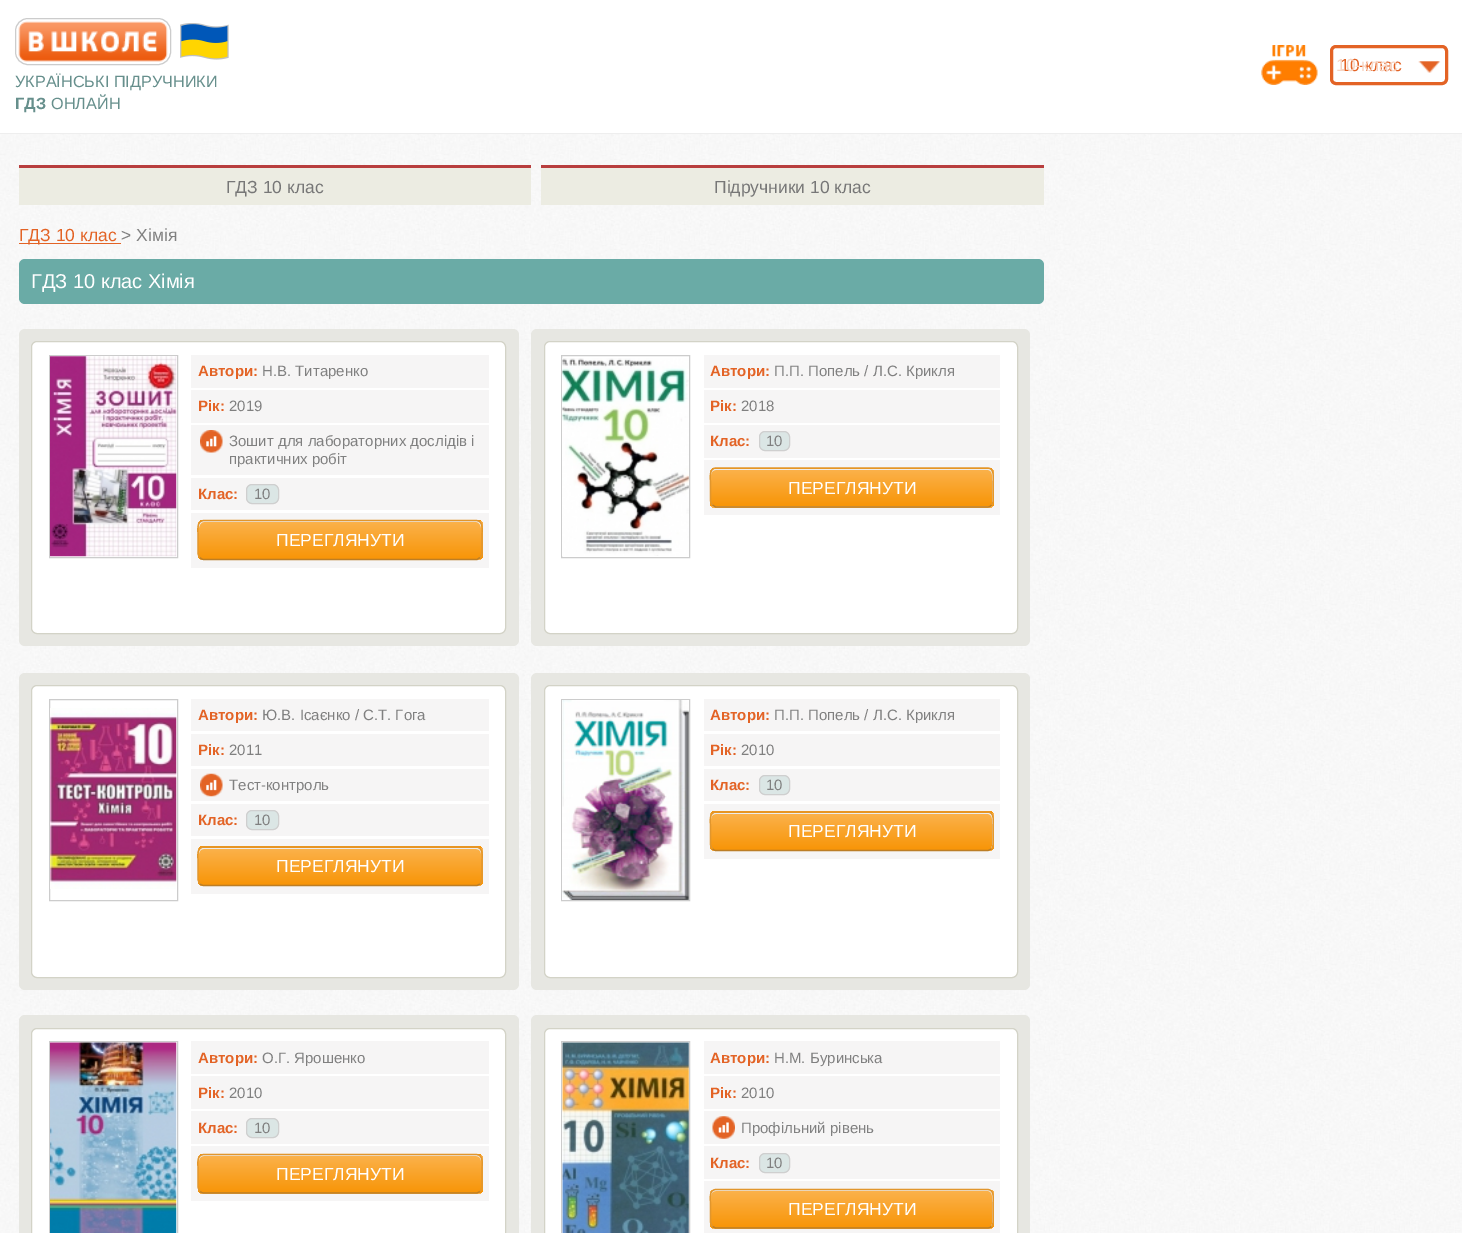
%!PS
<< /PageSize [1462 1233] >> setpagedevice
/mt/moveto load def
/li/lineto load def
/ct/curveto load def
/cp/closepath load def
/fl/fill load def
/st/stroke load def
/gs/gsave load def
/gr/grestore load def
/lw/setlinewidth load def
/co { dup -16 bitshift 255 div exch dup -8 bitshift 255 and 255 div exch 255 and 255 div setrgbcolor } def
/fn { [ exch dup neg 0 0 3 -1 roll 0 0 ] selectfont } def
/tx { co fn moveto show } def
/bx { co rectfill } def
/rr { 5 dict begin { /r /h /w /y /x } { exch def } forall
  x r add y moveto x w add y 2 copy h add r arct x w add y h add x 1 index r arct
  x y h add x y r arct x y 2 copy exch w add exch r arct closepath end } def
/im { 5 dict begin { /h /w /y /x /name } { exch def } forall
  gsave x y translate w h scale
  w h 8 [w 0 0 h 0 0] name (r) file false 3 colorimage grestore end } def
0 1233 translate 1 -1 scale
4 setmiterlimit
0 0 1462 1233 16#FFFFFF bx
(media/1.raw) 0 134 1462 1099 im
0 133 1462 1 16#EEEEEE bx
(media/2.raw) 1261 45 57 40 im
(media/3.raw) 1418 61 23 12 im
16#E36325 co
3 lw
1331.5 46.5 115 37 4.5 rr st
(media/4.raw) 18 21 150 44 im
16#CCCCCC co
1 lw
15.5 18.5 155 46 12.5 rr st
(media/5.raw) 180 23 49 37 im
19 168 512 37 16#ECECE2 bx
19 165 512 3 16#B83E3E bx
541 168 503 37 16#ECECE2 bx
541 165 503 3 16#B83E3E bx
19 243 102 1 16#E36325 bx
16#6AABA6 co
19 259 1025 45 6 rr fl
16#E7E7E2 co
19 329 500 317 6 rr fl
16#FFFFFF co
31.5 341.5 474 292 5.5 rr gs fl gr
16#D3D3C7 co
st
16#CCCCCC co
49.5 355.5 128 202 rectstroke
(media/6.raw) 50 356 127 201 im
191 355 298 33 16#F6F5F5 bx
191 390 298 33 16#F6F5F5 bx
191 425 298 50 16#F6F5F5 bx
(media/7.raw) 200 430 23 23 im
191 478 298 32 16#F6F5F5 bx
16#DBE6E5 co
246.5 484.5 32 19 5.5 rr gs fl gr
16#CFCFCF co
st
191 513 298 55 16#F6F5F5 bx
gs
198 520 285 40 6 rr clip newpath
gs 198 520 mt 483 520 li 483 521 li 198 521 li cp clip newpath
<< /ShadingType 2 /ColorSpace /DeviceRGB /Coords [340 484 340 521] /Extend [true true] /Function << /FunctionType 2 /Domain [0 1] /C0 [.984 .698 .298] /C1 [.973 .584 .027] /N 1 >> >> shfill gr
gs 198 521 mt 483 521 li 483 559 li 198 559 li cp clip newpath
<< /ShadingType 2 /ColorSpace /DeviceRGB /Coords [340 521 340 559] /Extend [true true] /Function << /FunctionType 2 /Domain [0 1] /C0 [.984 .698 .298] /C1 [.973 .584 .027] /N 1 >> >> shfill gr
gs 198 559 mt 483 559 li 483 560 li 198 560 li cp clip newpath
<< /ShadingType 2 /ColorSpace /DeviceRGB /Coords [340 559 340 596] /Extend [true true] /Function << /FunctionType 2 /Domain [0 1] /C0 [.984 .698 .298] /C1 [.973 .584 .027] /N 1 >> >> shfill gr
gr
16#ECECEC co
204 522 mt 476 522 li 479 522 481 525 481 528 ct 481 526 li 481 523 479 521 476 521 ct 204 521 li 201 521 199 523 199 526 ct 199 528 li 199 525 201 522 204 522 ct cp fl
16#BC7E26 co
1.2 lw
480 557.5 mt 477 559.5 li 204 559.5 li 202.5 559.5 201 559 200 557.5 ct st
16#E1962D co
200 557.5 mt 197.5 555.5 198 552 198 549 ct 198 535.5 li 198 531 196 520.5 204 520.5 ct 476 520.5 li 484 520.5 482 531 482 535.5 ct 482 549 li 482 552 482.5 555.5 480 557.5 ct st
16#E7E7E2 co
531 329 499 317 6 rr fl
16#FFFFFF co
544.5 341.5 473 292 5.5 rr gs fl gr
16#D3D3C7 co
1 lw
st
16#CCCCCC co
561.5 355.5 128 202 rectstroke
(media/8.raw) 562 358 127 198 im
704 355 296 33 16#F6F5F5 bx
704 390 296 33 16#F6F5F5 bx
704 425 296 33 16#F6F5F5 bx
16#DBE6E5 co
759.5 431.5 30 19 5.5 rr gs fl gr
16#CFCFCF co
st
704 460 296 55 16#F6F5F5 bx
gs
710 468 284 40 6 rr clip newpath
gs 710 468 mt 994 468 li 994 469 li 710 469 li cp clip newpath
<< /ShadingType 2 /ColorSpace /DeviceRGB /Coords [852 431 852 469] /Extend [true true] /Function << /FunctionType 2 /Domain [0 1] /C0 [.984 .698 .298] /C1 [.973 .584 .027] /N 1 >> >> shfill gr
gs 710 469 mt 994 469 li 994 506 li 710 506 li cp clip newpath
<< /ShadingType 2 /ColorSpace /DeviceRGB /Coords [852 469 852 506] /Extend [true true] /Function << /FunctionType 2 /Domain [0 1] /C0 [.984 .698 .298] /C1 [.973 .584 .027] /N 1 >> >> shfill gr
gs 710 506 mt 994 506 li 994 508 li 710 508 li cp clip newpath
<< /ShadingType 2 /ColorSpace /DeviceRGB /Coords [852 506 852 544] /Extend [true true] /Function << /FunctionType 2 /Domain [0 1] /C0 [.984 .698 .298] /C1 [.973 .584 .027] /N 1 >> >> shfill gr
gr
16#ECECEC co
716 470 mt 988 470 li 990 470 992 472 992 475 ct 992 502 li 992 505 li 992 504 993 502 993 501 ct 993 474 li 993 471 991 469 988 469 ct 716 469 li 713 469 711 471 711 474 ct 711 475 li 711 472 713 470 716 470 ct cp fl
16#BC7E26 co
1.2 lw
991.5 505 mt 990.5 506.5 989 507 987.5 507 ct 715.5 507 li 712.5 505 li st
16#E1962D co
712.5 505 mt 710 503 710.5 499.5 710.5 496.5 ct 710.5 483 li 710.5 478.5 708.5 468 716 468 ct 987.5 468 li 995 468 993 478.5 993 483 ct 993 496.5 li 993 499.5 993.5 503 991.5 505 ct st
16#E7E7E2 co
19 673 500 317 6 rr fl
16#FFFFFF co
31.5 685.5 474 292 5.5 rr gs fl gr
16#D3D3C7 co
1 lw
st
16#CCCCCC co
49.5 699.5 128 201 rectstroke
(media/9.raw) 50 708 127 181 im
191 699 298 32 16#F6F5F5 bx
191 734 298 32 16#F6F5F5 bx
191 769 298 32 16#F6F5F5 bx
(media/10.raw) 200 773 23 24 im
191 804 298 32 16#F6F5F5 bx
16#DBE6E5 co
246.5 810.5 32 19 5.5 rr gs fl gr
16#CFCFCF co
st
191 839 298 55 16#F6F5F5 bx
gs
198 846 285 40 6 rr clip newpath
gs 198 846 mt 483 846 li 483 848 li 198 848 li cp clip newpath
<< /ShadingType 2 /ColorSpace /DeviceRGB /Coords [340 810 340 848] /Extend [true true] /Function << /FunctionType 2 /Domain [0 1] /C0 [.984 .698 .298] /C1 [.973 .584 .027] /N 1 >> >> shfill gr
gs 198 848 mt 483 848 li 483 885 li 198 885 li cp clip newpath
<< /ShadingType 2 /ColorSpace /DeviceRGB /Coords [340 848 340 885] /Extend [true true] /Function << /FunctionType 2 /Domain [0 1] /C0 [.984 .698 .298] /C1 [.973 .584 .027] /N 1 >> >> shfill gr
gs 198 885 mt 483 885 li 483 886 li 198 886 li cp clip newpath
<< /ShadingType 2 /ColorSpace /DeviceRGB /Coords [340 885 340 923] /Extend [true true] /Function << /FunctionType 2 /Domain [0 1] /C0 [.984 .698 .298] /C1 [.973 .584 .027] /N 1 >> >> shfill gr
gr
16#ECECEC co
204 849 mt 476 849 li 479 849 481 851 481 854 ct 481 853 li 481 850 479 848 476 848 ct 204 848 li 201 848 199 850 199 853 ct 199 854 li 199 851 201 849 204 849 ct cp fl
16#BC7E26 co
1.2 lw
480 884 mt 477 885.5 li 204 885.5 li 202.5 885.5 201 885 200 884 ct st
16#E1962D co
200 884 mt 197.5 881.5 198 878.5 198 875.5 ct 198 861.5 li 198 857 196 847 204 847 ct 476 847 li 484 847 482 857 482 861.5 ct 482 875.5 li 482 878.5 482.5 881.5 480 884 ct st
16#E7E7E2 co
531 673 499 317 6 rr fl
16#FFFFFF co
544.5 685.5 473 292 5.5 rr gs fl gr
16#D3D3C7 co
1 lw
st
16#CCCCCC co
561.5 699.5 128 201 rectstroke
(media/11.raw) 562 700 127 200 im
704 699 296 32 16#F6F5F5 bx
704 734 296 32 16#F6F5F5 bx
704 769 296 32 16#F6F5F5 bx
16#DBE6E5 co
759.5 775.5 30 19 5.5 rr gs fl gr
16#CFCFCF co
st
704 804 296 55 16#F6F5F5 bx
gs
710 811 284 40 6 rr clip newpath
gs 710 811 mt 994 811 li 994 813 li 710 813 li cp clip newpath
<< /ShadingType 2 /ColorSpace /DeviceRGB /Coords [852 775 852 813] /Extend [true true] /Function << /FunctionType 2 /Domain [0 1] /C0 [.984 .698 .298] /C1 [.973 .584 .027] /N 1 >> >> shfill gr
gs 710 813 mt 994 813 li 994 850 li 710 850 li cp clip newpath
<< /ShadingType 2 /ColorSpace /DeviceRGB /Coords [852 813 852 850] /Extend [true true] /Function << /FunctionType 2 /Domain [0 1] /C0 [.984 .698 .298] /C1 [.973 .584 .027] /N 1 >> >> shfill gr
gs 710 850 mt 994 850 li 994 851 li 710 851 li cp clip newpath
<< /ShadingType 2 /ColorSpace /DeviceRGB /Coords [852 850 852 888] /Extend [true true] /Function << /FunctionType 2 /Domain [0 1] /C0 [.984 .698 .298] /C1 [.973 .584 .027] /N 1 >> >> shfill gr
gr
16#ECECEC co
716 814 mt 988 814 li 990 814 992 816 992 819 ct 992 846 li 991 849 li 992 848 993 846 993 845 ct 993 818 li 993 815 991 813 988 813 ct 716 813 li 713 813 711 815 711 818 ct 711 819 li 711 816 713 814 716 814 ct cp fl
16#BC7E26 co
1.2 lw
991.5 849 mt 988 850.5 li 716 850.5 li 715 850.5 713.5 850 712.5 849 ct st
16#E1962D co
712.5 849 mt 710 846.5 710.5 843.5 710.5 840.5 ct 710.5 826.5 li 710.5 822 708.5 812 716 812 ct 987.5 812 li 995 812 993 822 993 826.5 ct 993 840.5 li 993 843.5 993.5 846.5 991.5 849 ct st
16#E7E7E2 co
19 1015 500 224 6 rr fl
16#FFFFFF co
31.5 1028.5 474 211 5.5 rr gs fl gr
16#D3D3C7 co
1 lw
st
16#CCCCCC co
49.5 1041.5 128 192 rectstroke
(media/12.raw) 50 1042 127 191 im
191 1041 298 33 16#F6F5F5 bx
191 1076 298 33 16#F6F5F5 bx
191 1111 298 33 16#F6F5F5 bx
16#DBE6E5 co
246.5 1118.5 32 19 5.5 rr gs fl gr
16#CFCFCF co
st
191 1146 298 55 16#F6F5F5 bx
gs
198 1154 285 40 6 rr clip newpath
gs 198 1154 mt 483 1154 li 483 1155 li 198 1155 li cp clip newpath
<< /ShadingType 2 /ColorSpace /DeviceRGB /Coords [340 1118 340 1155] /Extend [true true] /Function << /FunctionType 2 /Domain [0 1] /C0 [.984 .698 .298] /C1 [.973 .584 .027] /N 1 >> >> shfill gr
gs 198 1155 mt 483 1155 li 483 1193 li 198 1193 li cp clip newpath
<< /ShadingType 2 /ColorSpace /DeviceRGB /Coords [340 1155 340 1193] /Extend [true true] /Function << /FunctionType 2 /Domain [0 1] /C0 [.984 .698 .298] /C1 [.973 .584 .027] /N 1 >> >> shfill gr
gs 198 1193 mt 483 1193 li 483 1194 li 198 1194 li cp clip newpath
<< /ShadingType 2 /ColorSpace /DeviceRGB /Coords [340 1193 340 1230] /Extend [true true] /Function << /FunctionType 2 /Domain [0 1] /C0 [.984 .698 .298] /C1 [.973 .584 .027] /N 1 >> >> shfill gr
gr
16#ECECEC co
204 1156 mt 476 1156 li 479 1156 481 1158 481 1161 ct 481 1160 li 481 1157 479 1155 476 1155 ct 204 1155 li 201 1155 199 1157 199 1160 ct 199 1161 li 199 1158 201 1156 204 1156 ct cp fl
16#BC7E26 co
1.2 lw
480 1191.5 mt 477 1193 li 204 1193 li 202.5 1193 201 1192.5 200 1191.5 ct st
16#E1962D co
200 1191.5 mt 197.5 1189 198 1186 198 1183 ct 198 1169 li 198 1164.5 196 1154.5 204 1154.5 ct 476 1154.5 li 484 1154.5 482 1164.5 482 1169 ct 482 1183 li 482 1186 482.5 1189 480 1191.5 ct st
16#E7E7E2 co
531 1015 499 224 6 rr fl
16#FFFFFF co
544.5 1028.5 473 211 5.5 rr gs fl gr
16#D3D3C7 co
1 lw
st
16#CCCCCC co
561.5 1041.5 128 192 rectstroke
(media/13.raw) 562 1042 127 191 im
704 1041 296 33 16#F6F5F5 bx
704 1076 296 33 16#F6F5F5 bx
704 1111 296 33 16#F6F5F5 bx
(media/14.raw) 712 1116 23 23 im
704 1146 296 33 16#F6F5F5 bx
16#DBE6E5 co
759.5 1153.5 30 19 5.5 rr gs fl gr
16#CFCFCF co
st
704 1181 296 52 16#F6F5F5 bx
gs
710 1189 284 40 6 rr clip newpath
gs 710 1190 mt 994 1190 li 994 1228 li 710 1228 li cp clip newpath
<< /ShadingType 2 /ColorSpace /DeviceRGB /Coords [852 1190 852 1228] /Extend [true true] /Function << /FunctionType 2 /Domain [0 1] /C0 [.984 .698 .298] /C1 [.973 .584 .027] /N 1 >> >> shfill gr
gs 710 1228 mt 994 1228 li 994 1229 li 710 1229 li cp clip newpath
<< /ShadingType 2 /ColorSpace /DeviceRGB /Coords [852 1228 852 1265] /Extend [true true] /Function << /FunctionType 2 /Domain [0 1] /C0 [.984 .698 .298] /C1 [.973 .584 .027] /N 1 >> >> shfill gr
gr
16#ECECEC co
716 1191 mt 988 1191 li 990 1191 992 1193 992 1196 ct 992 1224 li 991 1227 li 992 1226 993 1224 993 1223 ct 993 1195 li 993 1192 991 1190 988 1190 ct 716 1190 li 713 1190 711 1192 711 1195 ct 711 1196 li 711 1193 713 1191 716 1191 ct cp fl
16#BC7E26 co
1.2 lw
991.5 1226.5 mt 990.5 1227.5 989 1228 987.5 1228 ct 715.5 1228 li 712.5 1226.5 li st
16#E1962D co
712.5 1226.5 mt 710 1224 710.5 1221 710.5 1218 ct 710.5 1204 li 710.5 1199.5 708.5 1189.5 716 1189.5 ct 987.5 1189.5 li 995 1189.5 993 1199.5 993 1204 ct 993 1218 li 993 1221 993.5 1224 991.5 1226.5 ct st
(10-клас) 1340 71 /LiberationSans-Regular 17.5 16#E36325 tx
(10-клас) 1336 71 /LiberationSans-Regular 17.5 16#F7D5C4 tx
(УКРАЇНСЬКІ ПІДРУЧНИКИ) 15 87 /LiberationSans-Regular 16.25 16#668F8C tx
(ГДЗ) 15 109 /LiberationSans-Bold 16.25 16#668F8C tx
(ОНЛАЙН) 51 109 /LiberationSans-Regular 16.25 16#668F8C tx
(ГДЗ 10 клас) 226 193 /LiberationSans-Regular 17.5 16#777777 tx
(Підручники 10 клас) 714 193 /LiberationSans-Regular 17.5 16#777777 tx
(ГДЗ 10 клас) 19 241 /LiberationSans-Regular 17.5 16#E36325 tx
(> Хімія) 121 241 /LiberationSans-Regular 17.5 16#808080 tx
(ГДЗ 10 клас Хімія) 31 288 /LiberationSans-Regular 20 16#FFFFFF tx
(Автори:) 198 376 /LiberationSans-Bold 15 16#E36325 tx
(Н.В. Титаренко) 262 376 /LiberationSans-Regular 15 16#808080 tx
(Рік:) 198 411 /LiberationSans-Bold 15 16#E36325 tx
(2019) 229 411 /LiberationSans-Regular 15 16#808080 tx
(Зошит для лабораторних дослідів і) 229 446 /LiberationSans-Regular 15 16#808080 tx
(практичних робіт) 229 464 /LiberationSans-Regular 15 16#808080 tx
(Клас:) 198 499 /LiberationSans-Bold 15 16#E36325 tx
(10) 254 499 /LiberationSans-Regular 15 16#808080 tx
(ПЕРЕГЛЯНУТИ) 276 546 /LiberationSans-Regular 17.5 16#FFFFFF tx
(Автори:) 710 376 /LiberationSans-Bold 15 16#E36325 tx
(П.П. Попель / Л.С. Крикля) 774 376 /LiberationSans-Regular 15 16#808080 tx
(Рік:) 710 411 /LiberationSans-Bold 15 16#E36325 tx
(2018) 741 411 /LiberationSans-Regular 15 16#808080 tx
(Клас:) 710 446 /LiberationSans-Bold 15 16#E36325 tx
(10) 766 446 /LiberationSans-Regular 15 16#808080 tx
(ПЕРЕГЛЯНУТИ) 788 494 /LiberationSans-Regular 17.5 16#FFFFFF tx
(Автори:) 198 720 /LiberationSans-Bold 15 16#E36325 tx
(Ю.В. Ісаєнко / С.Т. Гога) 262 720 /LiberationSans-Regular 15 16#808080 tx
(Рік:) 198 755 /LiberationSans-Bold 15 16#E36325 tx
(2011) 229 755 /LiberationSans-Regular 15 16#808080 tx
(Тест-контроль) 229 790 /LiberationSans-Regular 15 16#808080 tx
(Клас:) 198 825 /LiberationSans-Bold 15 16#E36325 tx
(10) 254 825 /LiberationSans-Regular 15 16#808080 tx
(ПЕРЕГЛЯНУТИ) 276 872 /LiberationSans-Regular 17.5 16#FFFFFF tx
(Автори:) 710 720 /LiberationSans-Bold 15 16#E36325 tx
(П.П. Попель / Л.С. Крикля) 774 720 /LiberationSans-Regular 15 16#808080 tx
(Рік:) 710 755 /LiberationSans-Bold 15 16#E36325 tx
(2010) 741 755 /LiberationSans-Regular 15 16#808080 tx
(Клас:) 710 790 /LiberationSans-Bold 15 16#E36325 tx
(10) 766 790 /LiberationSans-Regular 15 16#808080 tx
(ПЕРЕГЛЯНУТИ) 788 837 /LiberationSans-Regular 17.5 16#FFFFFF tx
(Автори:) 198 1063 /LiberationSans-Bold 15 16#E36325 tx
(О.Г. Ярошенко) 262 1063 /LiberationSans-Regular 15 16#808080 tx
(Рік:) 198 1098 /LiberationSans-Bold 15 16#E36325 tx
(2010) 229 1098 /LiberationSans-Regular 15 16#808080 tx
(Клас:) 198 1133 /LiberationSans-Bold 15 16#E36325 tx
(10) 254 1133 /LiberationSans-Regular 15 16#808080 tx
(ПЕРЕГЛЯНУТИ) 276 1180 /LiberationSans-Regular 17.5 16#FFFFFF tx
(Автори:) 710 1063 /LiberationSans-Bold 15 16#E36325 tx
(Н.М. Буринська) 774 1063 /LiberationSans-Regular 15 16#808080 tx
(Рік:) 710 1098 /LiberationSans-Bold 15 16#E36325 tx
(2010) 741 1098 /LiberationSans-Regular 15 16#808080 tx
(Профільний рівень) 741 1133 /LiberationSans-Regular 15 16#808080 tx
(Клас:) 710 1168 /LiberationSans-Bold 15 16#E36325 tx
(10) 766 1168 /LiberationSans-Regular 15 16#808080 tx
(ПЕРЕГЛЯНУТИ) 788 1215 /LiberationSans-Regular 17.5 16#FFFFFF tx
showpage
